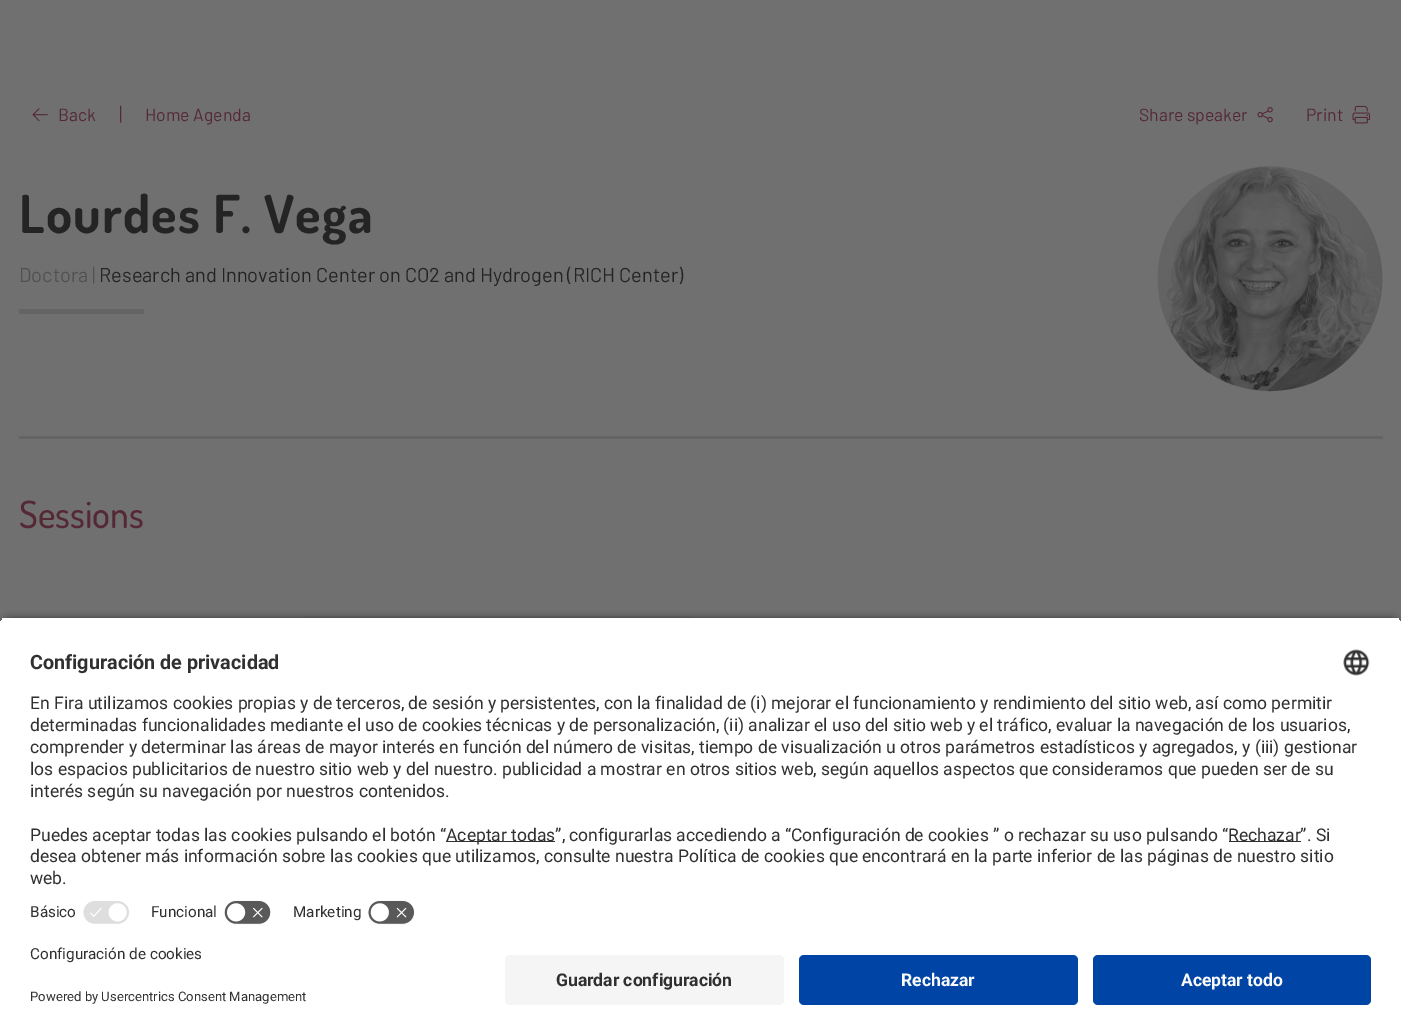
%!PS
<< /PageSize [1401 1035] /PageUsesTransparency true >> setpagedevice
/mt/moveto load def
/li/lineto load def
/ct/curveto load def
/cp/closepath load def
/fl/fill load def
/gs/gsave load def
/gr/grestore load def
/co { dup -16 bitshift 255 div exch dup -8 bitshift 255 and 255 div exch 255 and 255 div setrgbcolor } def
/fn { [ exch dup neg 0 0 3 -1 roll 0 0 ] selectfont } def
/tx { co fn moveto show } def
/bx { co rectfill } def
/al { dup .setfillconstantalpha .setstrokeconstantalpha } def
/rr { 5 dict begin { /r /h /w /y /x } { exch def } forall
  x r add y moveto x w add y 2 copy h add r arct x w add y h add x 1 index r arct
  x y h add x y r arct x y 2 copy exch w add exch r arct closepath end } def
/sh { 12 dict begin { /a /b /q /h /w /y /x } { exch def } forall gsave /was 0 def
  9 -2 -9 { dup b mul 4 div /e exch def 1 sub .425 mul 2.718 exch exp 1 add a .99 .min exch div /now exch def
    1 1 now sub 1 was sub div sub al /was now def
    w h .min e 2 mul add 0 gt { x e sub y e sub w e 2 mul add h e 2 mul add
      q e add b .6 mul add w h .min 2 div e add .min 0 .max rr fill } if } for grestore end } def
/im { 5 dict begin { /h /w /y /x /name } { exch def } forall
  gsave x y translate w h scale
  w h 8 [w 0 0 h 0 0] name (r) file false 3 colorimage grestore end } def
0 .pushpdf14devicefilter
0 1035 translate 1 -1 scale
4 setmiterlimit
0 0 1401 1035 16#707070 bx
(media/1.raw) 32 108 16 14 im
(media/2.raw) 1257 107 16 16 im
(media/3.raw) 1352 105 18 19 im
19 309 125 5 16#646464 bx
(media/4.raw) 1157 166 226 226 im
19 436 1364 3 16#646464 bx
16#6C6D6D co
301 616 394 25 5 rr fl
16#000000 co
0 620 1401 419 10 4.5 .8 sh
gs
10 616 mt 1391 616 li 1396.5 616 1401 620.5 1401 626 ct 1401 945 li 0 945 li 0 626 li 0 620.5 4.5 616 10 616 ct cp clip newpath
0 618 1401 327 16#FFFFFF bx
0 618 1401 277 16#FFFFFF bx
gr
(media/5.raw) 1343 649 27 27 im
446 841 109 1 16#303030 bx
1229 841 72 1 16#303030 bx
(media/6.raw) 83 901 46 23 im
(media/7.raw) 224 900 47 25 im
(media/8.raw) 367 900 48 25 im
0 945 1401 90 16#FFFFFF bx
16#F5F5F5 co
505 955 279 50 5 rr fl
16#0045A5 co
799 955 279 50 5 rr fl
1093 955 278 50 5 rr fl
(Back) 58 121 /Barlow-Regular 17.5 16#542835 tx
(|) 119 121 /Barlow-Regular 20 16#542835 tx
(Home Agenda) 145 121 /Barlow-Regular 17.5 16#542835 tx
(Share speaker) 1139 121 /Barlow-Regular 17.5 16#542835 tx
(Print) 1306 121 /Barlow-Regular 17.5 16#542835 tx
/Dosis-Bold 52.5 fn
16#242424 co
19 233 mt 1.25 0 (Lourdes F. Vega) ashow
(Doctora |) 19 282 /Barlow-Regular 20 16#515151 tx
(Research and Innovation Center on CO2 and Hydrogen \(RICH Center\)) 99 282 /Barlow-Regular 20 16#242424 tx
(Sessions) 19 528 /Dosis-Medium 37.5 16#542835 tx
(Configuración de privacidad) 30 669 /Roboto-Bold 19.75 16#303030 tx
(En Fira utilizamos cookies propias y de terceros, de sesión y persistentes, con la finalidad de \(i\) mejorar el funcionamiento y rendimiento del sitio web, así como permitir) 30 709 /Roboto-Regular 17.5 16#303030 tx
(determinadas funcionalidades mediante el uso de cookies técnicas y de personalización, \(ii\) analizar el uso del sitio web y el tráfico, evaluar la navegación de los usuarios,) 30 731 /Roboto-Regular 17.5 16#303030 tx
(comprender y determinar las áreas de mayor interés en función del número de visitas, tiempo de visualización u otros parámetros estadísticos y agregados, y \(iii\) gestionar) 30 753 /Roboto-Regular 17.5 16#303030 tx
(los espacios publicitarios de nuestro sitio web y del nuestro. publicidad a mostrar en otros sitios web, según aquellos aspectos que consideramos que pueden ser de su) 30 775 /Roboto-Regular 17.5 16#303030 tx
(interés según su navegación por nuestros contenidos.) 30 797 /Roboto-Regular 17.5 16#303030 tx
(Puedes aceptar todas las cookies pulsando el botón “) 30 841 /Roboto-Regular 17.5 16#303030 tx
(Aceptar todas”, configurarlas accediendo a “Configuración de cookies ” o rechazar su uso pulsando “) 446 841 /Roboto-Regular 17.5 16#303030 tx
(Rechazar”. Si) 1228 841 /Roboto-Regular 17.5 16#303030 tx
(desea obtener más información sobre las cookies que utilizamos, consulte nuestra Política de cookies que encontrará en la parte inferior de las páginas de nuestro sitio) 30 862 /Roboto-Regular 17.5 16#303030 tx
(web.) 30 884 /Roboto-Regular 17.5 16#303030 tx
(Básico) 30 917 /Roboto-Regular 15.25 16#303030 tx
(Funcional) 151 917 /Roboto-Regular 15.25 16#303030 tx
(Marketing) 293 917 /Roboto-Regular 15.25 16#303030 tx
(Configuración de cookies) 30 959 /Roboto-Regular 15.25 16#303030 tx
(Powered by Usercentrics Consent Management) 30 1001 /Roboto-Regular 13.1 16#303030 tx
(Guardar configuración) 556 986 /Roboto-Bold 17.5 16#303030 tx
(Rechazar) 901 986 /Roboto-Bold 17.5 16#FAFAFA tx
(Aceptar todo) 1181 986 /Roboto-Bold 17.5 16#FAFAFA tx
.poppdf14devicefilter showpage
